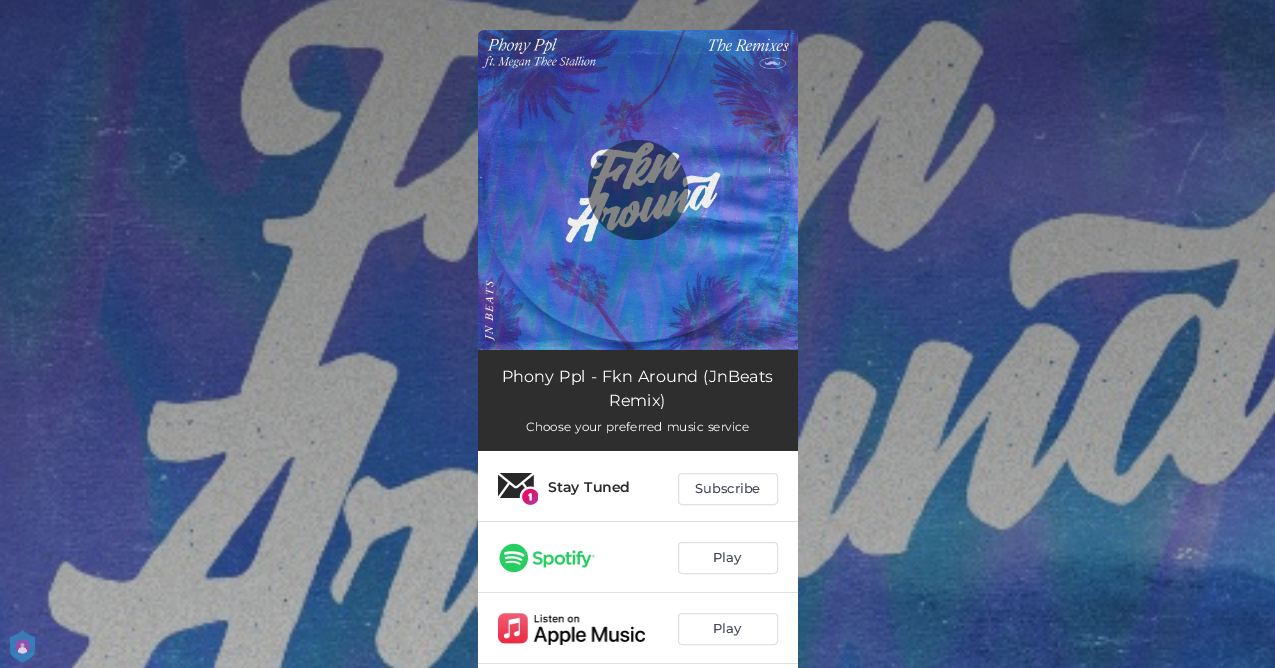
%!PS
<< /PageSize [1275 668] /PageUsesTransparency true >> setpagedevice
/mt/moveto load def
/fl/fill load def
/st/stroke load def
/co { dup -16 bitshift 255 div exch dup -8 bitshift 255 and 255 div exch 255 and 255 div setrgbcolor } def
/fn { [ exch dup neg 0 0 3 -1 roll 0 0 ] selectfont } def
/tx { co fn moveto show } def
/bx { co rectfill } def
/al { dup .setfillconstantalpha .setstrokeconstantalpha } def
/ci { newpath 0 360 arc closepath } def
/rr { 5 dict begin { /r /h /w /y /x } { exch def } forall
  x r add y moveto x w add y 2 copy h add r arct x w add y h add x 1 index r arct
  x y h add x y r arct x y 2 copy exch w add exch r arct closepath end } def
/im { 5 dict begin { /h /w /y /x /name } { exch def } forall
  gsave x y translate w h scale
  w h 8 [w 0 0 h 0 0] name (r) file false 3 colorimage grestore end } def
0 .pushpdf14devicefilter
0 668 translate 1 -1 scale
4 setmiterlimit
0 0 1275 668 16#FFFFFF bx
(media/1.raw) 0 0 1275 668 im
(media/2.raw) 478 30 320 320 im
0.45 al
16#000000 co
638 190 50 ci fl
1 al
478 350 320 101 16#2E2E2E bx
478 451 320 217 16#FFFFFF bx
478 521 320 1 16#E1E1E4 bx
(media/3.raw) 498 473 40 32 im
678.5 473.5 99 31 3.5 rr st
478 592 320 1 16#E1E1E4 bx
(media/4.raw) 499 543 96 30 im
678.5 542.5 99 31 3.5 rr st
478 663 320 1 16#E1E1E4 bx
(media/5.raw) 498 613 147 32 im
678.5 613.5 99 31 3.5 rr st
(media/6.raw) 10 630 25 33 im
/Montserrat-Regular 16 fn
16#FFFFFF co
502 382 mt 1 0 32 (Phony Ppl - Fkn Around \(JnBeats) widthshow
(Remix\)) 609 406 /Montserrat-Regular 16 16#FFFFFF tx
/Montserrat-Regular 12 fn
526 431 mt 1 0 32 (Choose your preferred music service) widthshow
/Montserrat-SemiBold 14 fn
16#282828 co
548 492 mt 1 0 32 (Stay Tuned) widthshow
(Subscribe) 695 493 /Montserrat-Medium 13 16#414754 tx
(Play) 713 562 /Montserrat-Medium 13 16#414754 tx
(Play) 713 633 /Montserrat-Medium 13 16#414754 tx
.poppdf14devicefilter showpage
